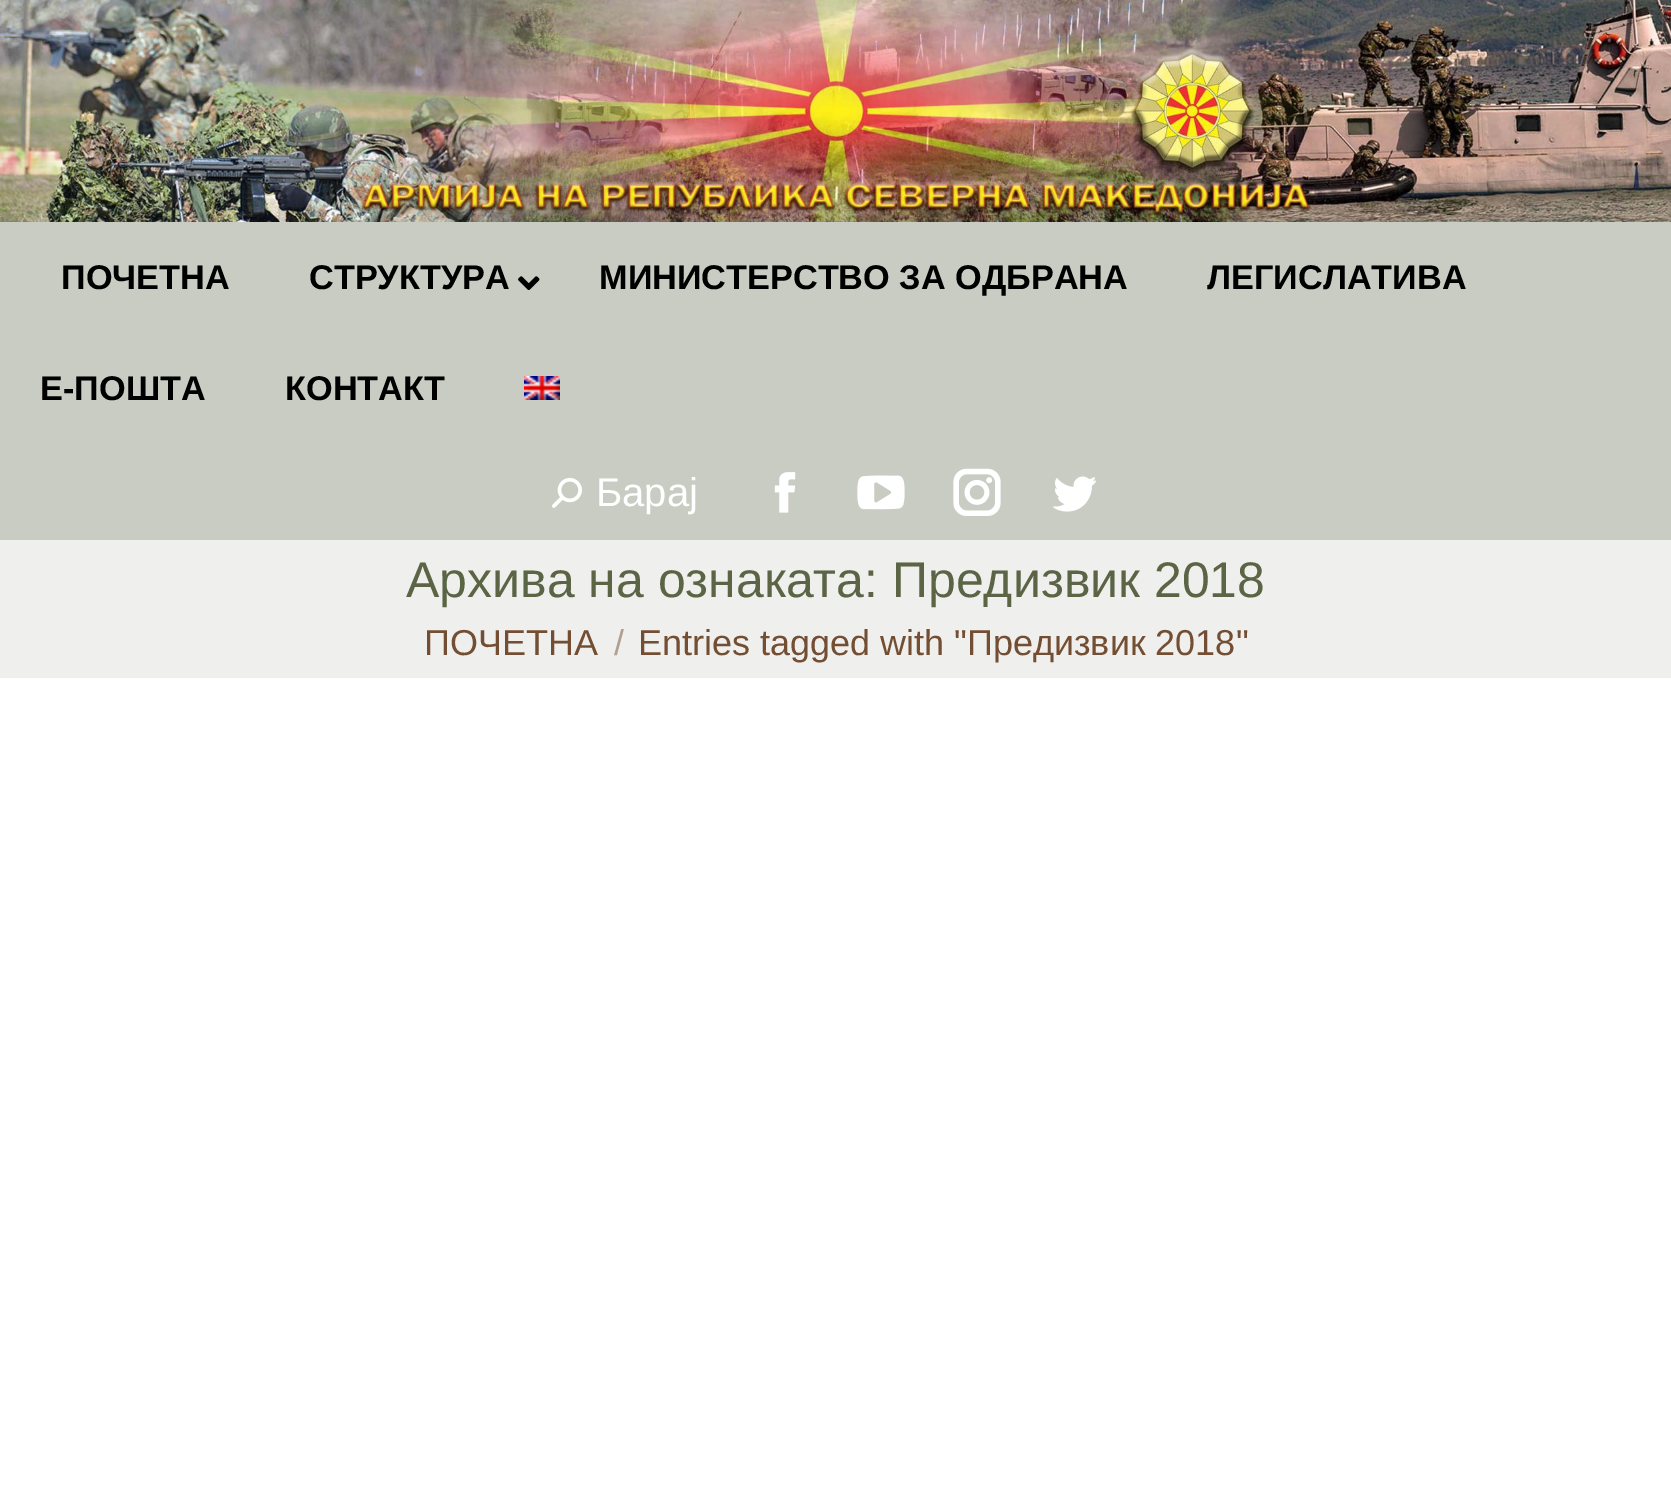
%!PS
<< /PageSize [1671 1490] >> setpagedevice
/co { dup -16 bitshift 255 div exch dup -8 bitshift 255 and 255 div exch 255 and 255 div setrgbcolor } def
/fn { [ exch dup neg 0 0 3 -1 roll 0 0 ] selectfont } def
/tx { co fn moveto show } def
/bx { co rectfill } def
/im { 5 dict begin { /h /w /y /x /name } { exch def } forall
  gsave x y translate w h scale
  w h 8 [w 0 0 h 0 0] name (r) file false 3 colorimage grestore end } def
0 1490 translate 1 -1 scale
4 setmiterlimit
0 0 1671 1490 16#FFFFFF bx
(media/1.raw) 0 0 1671 222 im
0 222 1671 318 16#C9CCC2 bx
(media/2.raw) 518 276 22 14 im
(media/3.raw) 524 376 36 24 im
(media/4.raw) 552 477 30 31 im
(media/5.raw) 774 472 22 41 im
(media/6.raw) 857 475 48 35 im
(media/7.raw) 953 468 48 48 im
(media/8.raw) 1053 476 43 36 im
0 540 1671 138 16#EFF0ED bx
(ПОЧЕТНА) 61 289 /LiberationSans-Bold 34.25 16#000000 tx
(СТРУКТУРА) 309 289 /LiberationSans-Bold 34.25 16#000000 tx
(МИНИСТЕРСТВО ЗА ОДБРАНА) 599 289 /LiberationSans-Bold 34.25 16#000000 tx
(ЛЕГИСЛАТИВА) 1207 289 /LiberationSans-Bold 34.25 16#000000 tx
(Е-ПОШТА) 40 400 /LiberationSans-Bold 34.25 16#000000 tx
(КОНТАКТ) 285 400 /LiberationSans-Bold 34.25 16#000000 tx
(Барај) 596 506 /LiberationSans-Regular 40 16#FFFFFF tx
(Архива на ознаката: Предизвик 2018) 406 597 /LiberationSans-Regular 50 16#5B6445 tx
(ПОЧЕТНА) 424 655 /LiberationSans-Regular 36 16#734E33 tx
(/) 614 655 /LiberationSans-Regular 36 16#B19F90 tx
(Entries tagged with "Предизвик 2018") 638 655 /LiberationSans-Regular 36 16#734E33 tx
showpage
